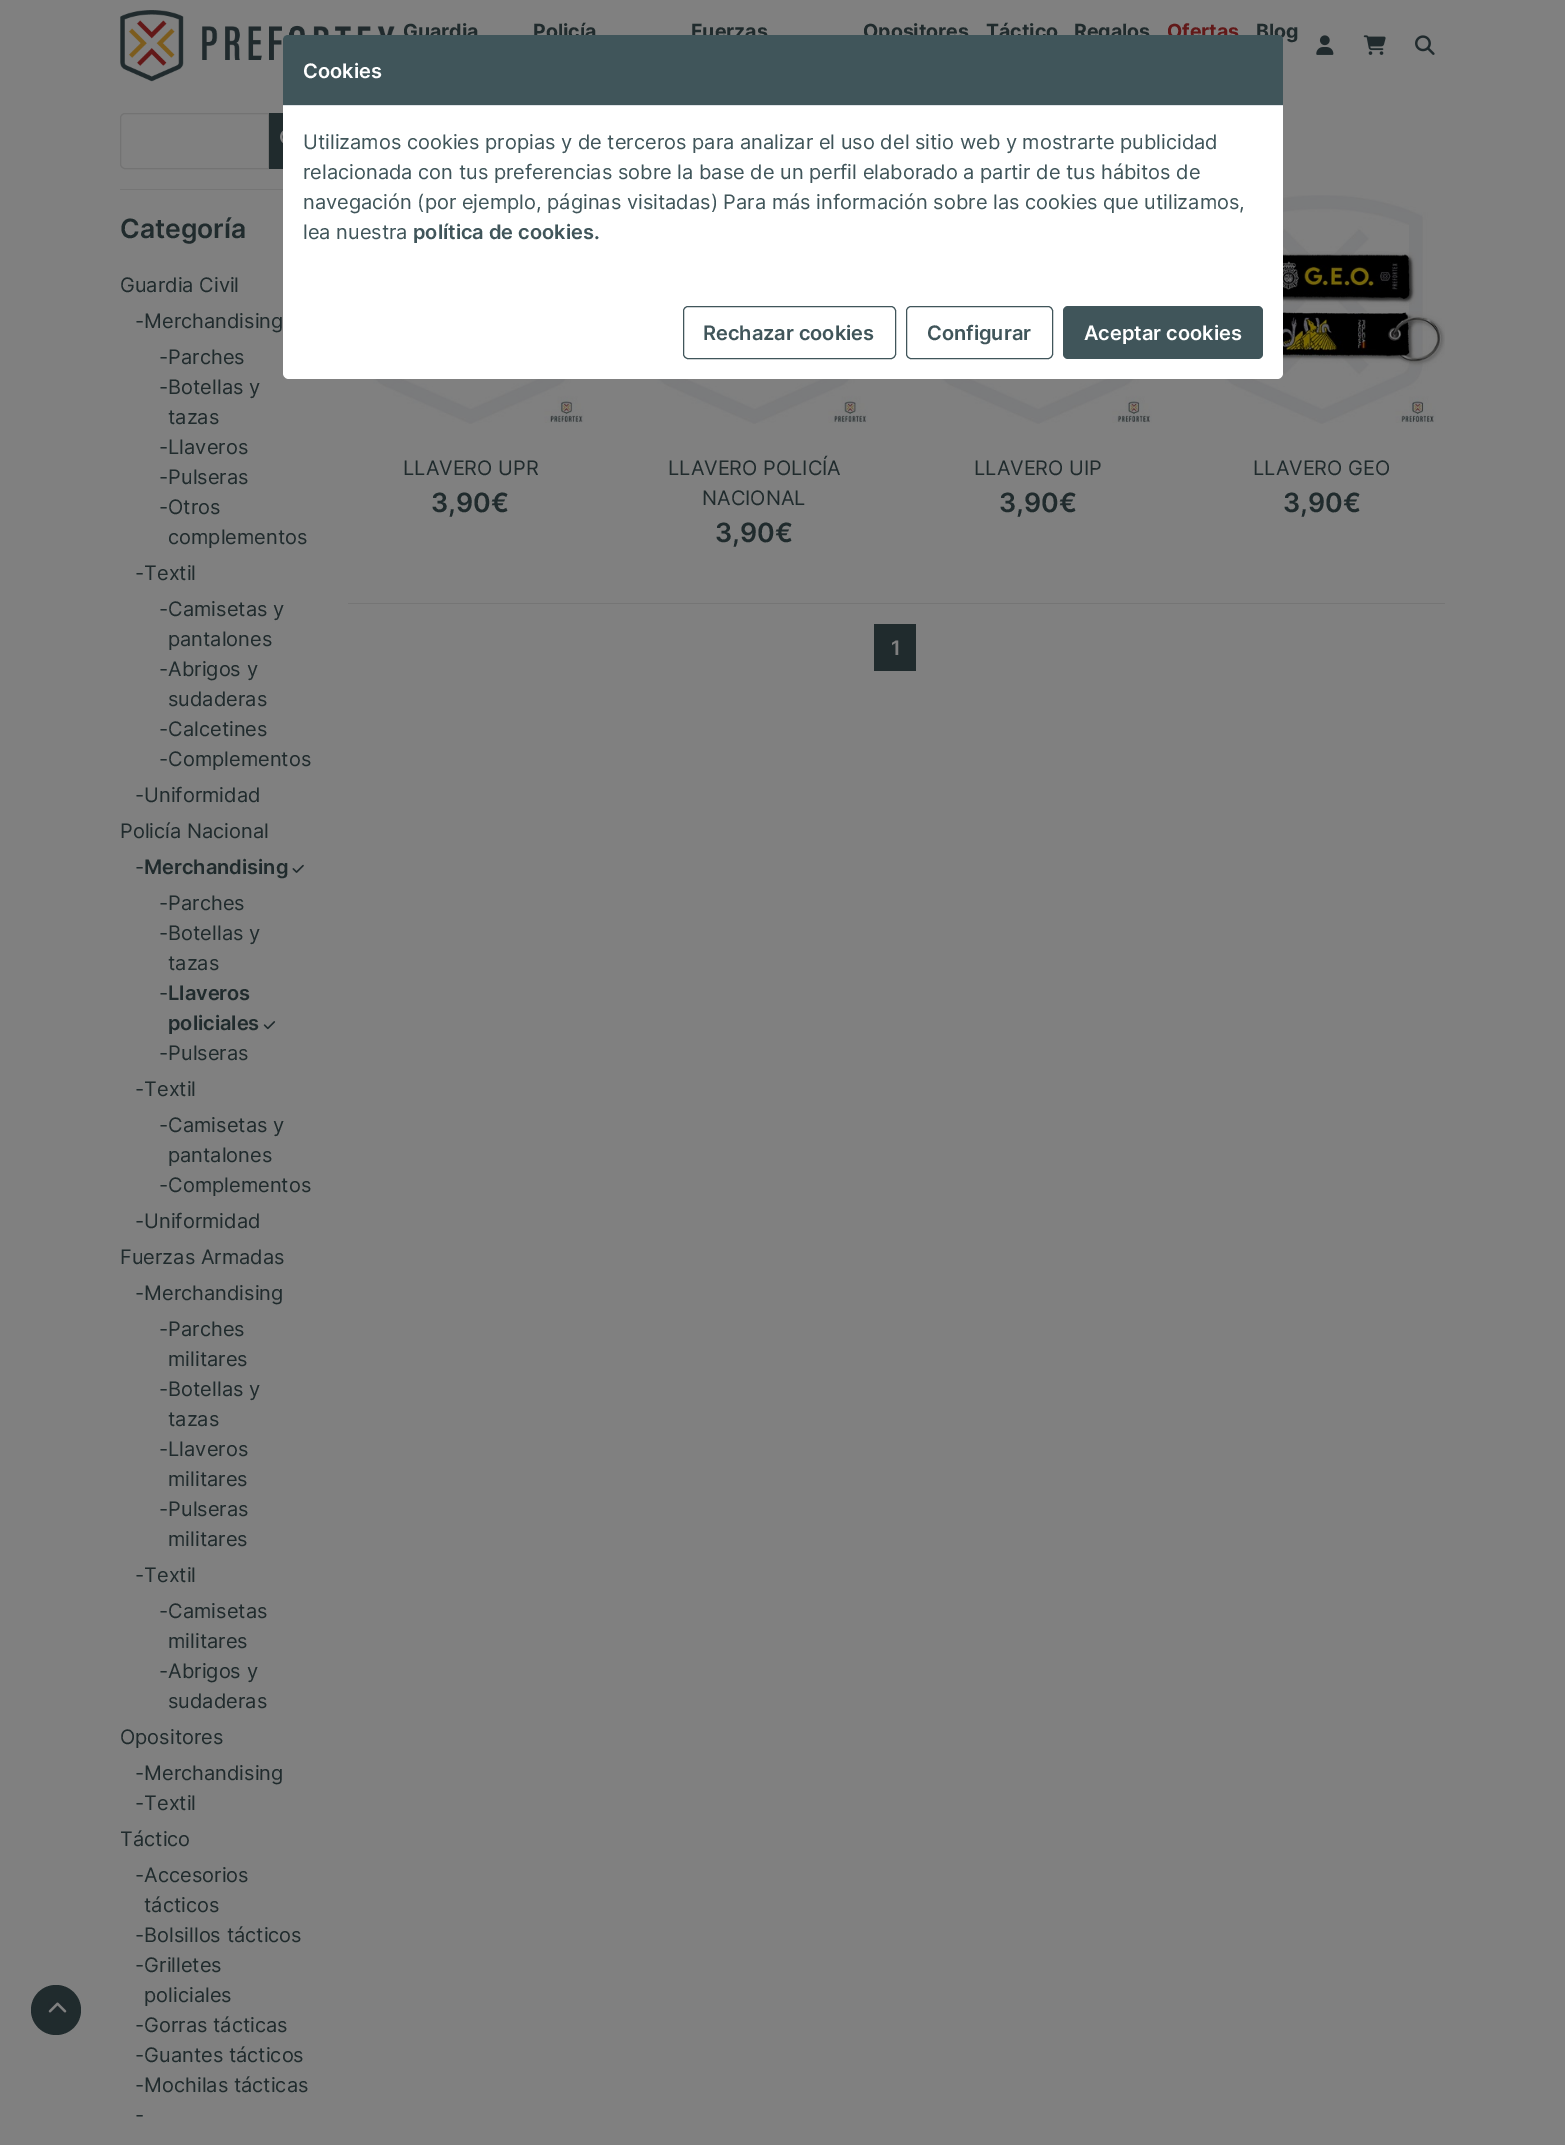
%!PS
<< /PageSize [1565 2145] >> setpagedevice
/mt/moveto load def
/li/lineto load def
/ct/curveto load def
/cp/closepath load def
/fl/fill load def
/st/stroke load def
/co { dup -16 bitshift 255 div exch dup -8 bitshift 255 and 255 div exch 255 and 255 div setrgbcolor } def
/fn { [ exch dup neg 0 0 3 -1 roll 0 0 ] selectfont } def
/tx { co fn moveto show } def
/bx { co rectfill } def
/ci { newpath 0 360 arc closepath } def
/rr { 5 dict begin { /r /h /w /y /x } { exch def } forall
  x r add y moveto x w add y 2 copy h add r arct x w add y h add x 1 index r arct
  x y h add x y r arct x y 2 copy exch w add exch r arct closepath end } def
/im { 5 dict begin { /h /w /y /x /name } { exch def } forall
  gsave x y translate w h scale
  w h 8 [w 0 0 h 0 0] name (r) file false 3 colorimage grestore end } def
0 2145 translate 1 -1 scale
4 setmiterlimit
0 0 1565 2145 16#808080 bx
(media/1.raw) 120 10 275 72 im
(media/2.raw) 1316 35 18 20 im
(media/3.raw) 1363 35 23 20 im
(media/4.raw) 1415 35 20 20 im
16#202B2D co
56 2010 25 ci fl
(media/5.raw) 48 2002 19 11 im
16#737373 co
125 113.5 mt 268.5 113.5 li 268.5 168.5 li 125 168.5 li 122.5 168.5 120.5 166.5 120.5 164 ct 120.5 118 li 120.5 115.5 122.5 113.5 125 113.5 ct cp st
269 113 14 56 16#202B2D bx
(media/6.raw) 280 130 3 13 im
120 189 163 1 16#757575 bx
(media/7.raw) 292 864 12 9 im
(media/8.raw) 263 1021 13 9 im
(media/9.raw) 352 379 242 45 im
(media/10.raw) 636 379 242 45 im
(media/11.raw) 920 379 241 45 im
(media/12.raw) 1202 195 243 229 im
348 603 1097 1 16#757575 bx
874 624 42 47 16#202B2D bx
(Guardia) 403 38 /Inter-Bold 19.5 16#202B2D tx
(Policía) 533 38 /Inter-Bold 19.5 16#202B2D tx
(Fuerzas) 691 38 /Inter-Bold 19.5 16#202B2D tx
(Opositores) 863 38 /Inter-Bold 19.5 16#202B2D tx
(Táctico) 986 38 /Inter-Bold 19.5 16#202B2D tx
(Regalos) 1074 38 /Inter-Bold 19.5 16#202B2D tx
(Ofertas) 1167 38 /Inter-Bold 19.5 16#621919 tx
(Blog) 1256 38 /Inter-Bold 19.5 16#202B2D tx
16#FFFFFF co
283 35 1000 344 6 rr fl
16#40555A co
288 35 mt 1278 35 li 1281 35 1283 37 1283 40 ct 1283 106 li 283 106 li 283 40 li 283 37 285 35 288 35 ct cp fl
283 105 1000 1 16#DEE2E6 bx
(Cookies) 303 78 /Inter-SemiBold 20 16#FFFFFF tx
(Utilizamos cookies propias y de terceros para analizar el uso del sitio web y mostrarte publicidad) 303 149 /Inter-Regular 20 16#40555A tx
(relacionada con tus preferencias sobre la base de un perfil elaborado a partir de tus hábitos de) 303 179 /Inter-Regular 20 16#40555A tx
(navegación \(por ejemplo, páginas visitadas\) Para más información sobre las cookies que utilizamos,) 303 209 /Inter-Regular 20 16#40555A tx
(lea nuestra) 303 239 /Inter-Regular 20 16#40555A tx
(política de cookies.) 413 239 /Inter-SemiBold 20 16#40555A tx
683.5 306.5 212 52 4.5 rr st
(Rechazar cookies) 703 340 /Inter-SemiBold 20 16#40555A tx
906.5 306.5 146 52 4.5 rr st
(Configurar) 927 340 /Inter-SemiBold 20 16#40555A tx
1063 306 200 53 5 rr fl
(Aceptar cookies) 1084 340 /Inter-SemiBold 20 16#FFFFFF tx
(Categoría) 120 238 /Inter-SemiBold 26.5 16#202B2D tx
(Guardia Civil) 120 292 /Inter-Regular 20 16#202B2D tx
(-Merchandising) 135 328 /Inter-Regular 20 16#202B2D tx
(-Parches) 159 364 /Inter-Regular 20 16#202B2D tx
(-Botellas y) 159 394 /Inter-Regular 20 16#202B2D tx
(tazas) 168 424 /Inter-Regular 20 16#202B2D tx
(-Llaveros) 159 454 /Inter-Regular 20 16#202B2D tx
(-Pulseras) 159 484 /Inter-Regular 20 16#202B2D tx
(-Otros) 159 514 /Inter-Regular 20 16#202B2D tx
(complementos) 168 544 /Inter-Regular 20 16#202B2D tx
(-Textil) 135 580 /Inter-Regular 20 16#202B2D tx
(-Camisetas y) 159 616 /Inter-Regular 20 16#202B2D tx
(pantalones) 168 646 /Inter-Regular 20 16#202B2D tx
(-Abrigos y) 159 676 /Inter-Regular 20 16#202B2D tx
(sudaderas) 168 706 /Inter-Regular 20 16#202B2D tx
(-Calcetines) 159 736 /Inter-Regular 20 16#202B2D tx
(-Complementos) 159 766 /Inter-Regular 20 16#202B2D tx
(-Uniformidad) 135 802 /Inter-Regular 20 16#202B2D tx
(Policía Nacional) 120 838 /Inter-Regular 20 16#202B2D tx
(-) 135 874 /Inter-Regular 20 16#202B2D tx
(Merchandising) 144 874 /Inter-SemiBold 20 16#202B2D tx
(-Parches) 159 910 /Inter-Regular 20 16#202B2D tx
(-Botellas y) 159 940 /Inter-Regular 20 16#202B2D tx
(tazas) 168 970 /Inter-Regular 20 16#202B2D tx
(-) 159 1000 /Inter-Regular 20 16#202B2D tx
(Llaveros) 168 1000 /Inter-SemiBold 20 16#202B2D tx
(policiales) 168 1030 /Inter-SemiBold 20 16#202B2D tx
(-Pulseras) 159 1060 /Inter-Regular 20 16#202B2D tx
(-Textil) 135 1096 /Inter-Regular 20 16#202B2D tx
(-Camisetas y) 159 1132 /Inter-Regular 20 16#202B2D tx
(pantalones) 168 1162 /Inter-Regular 20 16#202B2D tx
(-Complementos) 159 1192 /Inter-Regular 20 16#202B2D tx
(-Uniformidad) 135 1228 /Inter-Regular 20 16#202B2D tx
(Fuerzas Armadas) 120 1264 /Inter-Regular 20 16#202B2D tx
(-Merchandising) 135 1300 /Inter-Regular 20 16#202B2D tx
(-Parches) 159 1336 /Inter-Regular 20 16#202B2D tx
(militares) 168 1366 /Inter-Regular 20 16#202B2D tx
(-Botellas y) 159 1396 /Inter-Regular 20 16#202B2D tx
(tazas) 168 1426 /Inter-Regular 20 16#202B2D tx
(-Llaveros) 159 1456 /Inter-Regular 20 16#202B2D tx
(militares) 168 1486 /Inter-Regular 20 16#202B2D tx
(-Pulseras) 159 1516 /Inter-Regular 20 16#202B2D tx
(militares) 168 1546 /Inter-Regular 20 16#202B2D tx
(-Textil) 135 1582 /Inter-Regular 20 16#202B2D tx
(-Camisetas) 159 1618 /Inter-Regular 20 16#202B2D tx
(militares) 168 1648 /Inter-Regular 20 16#202B2D tx
(-Abrigos y) 159 1678 /Inter-Regular 20 16#202B2D tx
(sudaderas) 168 1708 /Inter-Regular 20 16#202B2D tx
(Opositores) 120 1744 /Inter-Regular 20 16#202B2D tx
(-Merchandising) 135 1780 /Inter-Regular 20 16#202B2D tx
(-Textil) 135 1810 /Inter-Regular 20 16#202B2D tx
(Táctico) 120 1846 /Inter-Regular 20 16#202B2D tx
(-Accesorios) 135 1882 /Inter-Regular 20 16#202B2D tx
(tácticos) 144 1912 /Inter-Regular 20 16#202B2D tx
(-Bolsillos tácticos) 135 1942 /Inter-Regular 20 16#202B2D tx
(-Grilletes) 135 1972 /Inter-Regular 20 16#202B2D tx
(policiales) 144 2002 /Inter-Regular 20 16#202B2D tx
(-Gorras tácticas) 135 2032 /Inter-Regular 20 16#202B2D tx
(-Guantes tácticos) 135 2062 /Inter-Regular 20 16#202B2D tx
(-Mochilas tácticas) 135 2092 /Inter-Regular 20 16#202B2D tx
(-) 135 2122 /Inter-Regular 20 16#202B2D tx
(LLAVERO UPR) 403 475 /Inter-Regular 20 16#202B2D tx
(3,90€) 431 512 /Inter-SemiBold 26.5 16#202B2D tx
(LLAVERO POLICÍA) 668 475 /Inter-Regular 20 16#202B2D tx
(NACIONAL) 702 505 /Inter-Regular 20 16#202B2D tx
(3,90€) 715 542 /Inter-SemiBold 26.5 16#202B2D tx
(LLAVERO UIP) 974 475 /Inter-Regular 20 16#202B2D tx
(3,90€) 999 512 /Inter-SemiBold 26.5 16#202B2D tx
(LLAVERO GEO) 1253 475 /Inter-Regular 20 16#202B2D tx
(3,90€) 1283 512 /Inter-SemiBold 26.5 16#202B2D tx
(1) 891 655 /Inter-SemiBold 20 16#808080 tx
showpage
